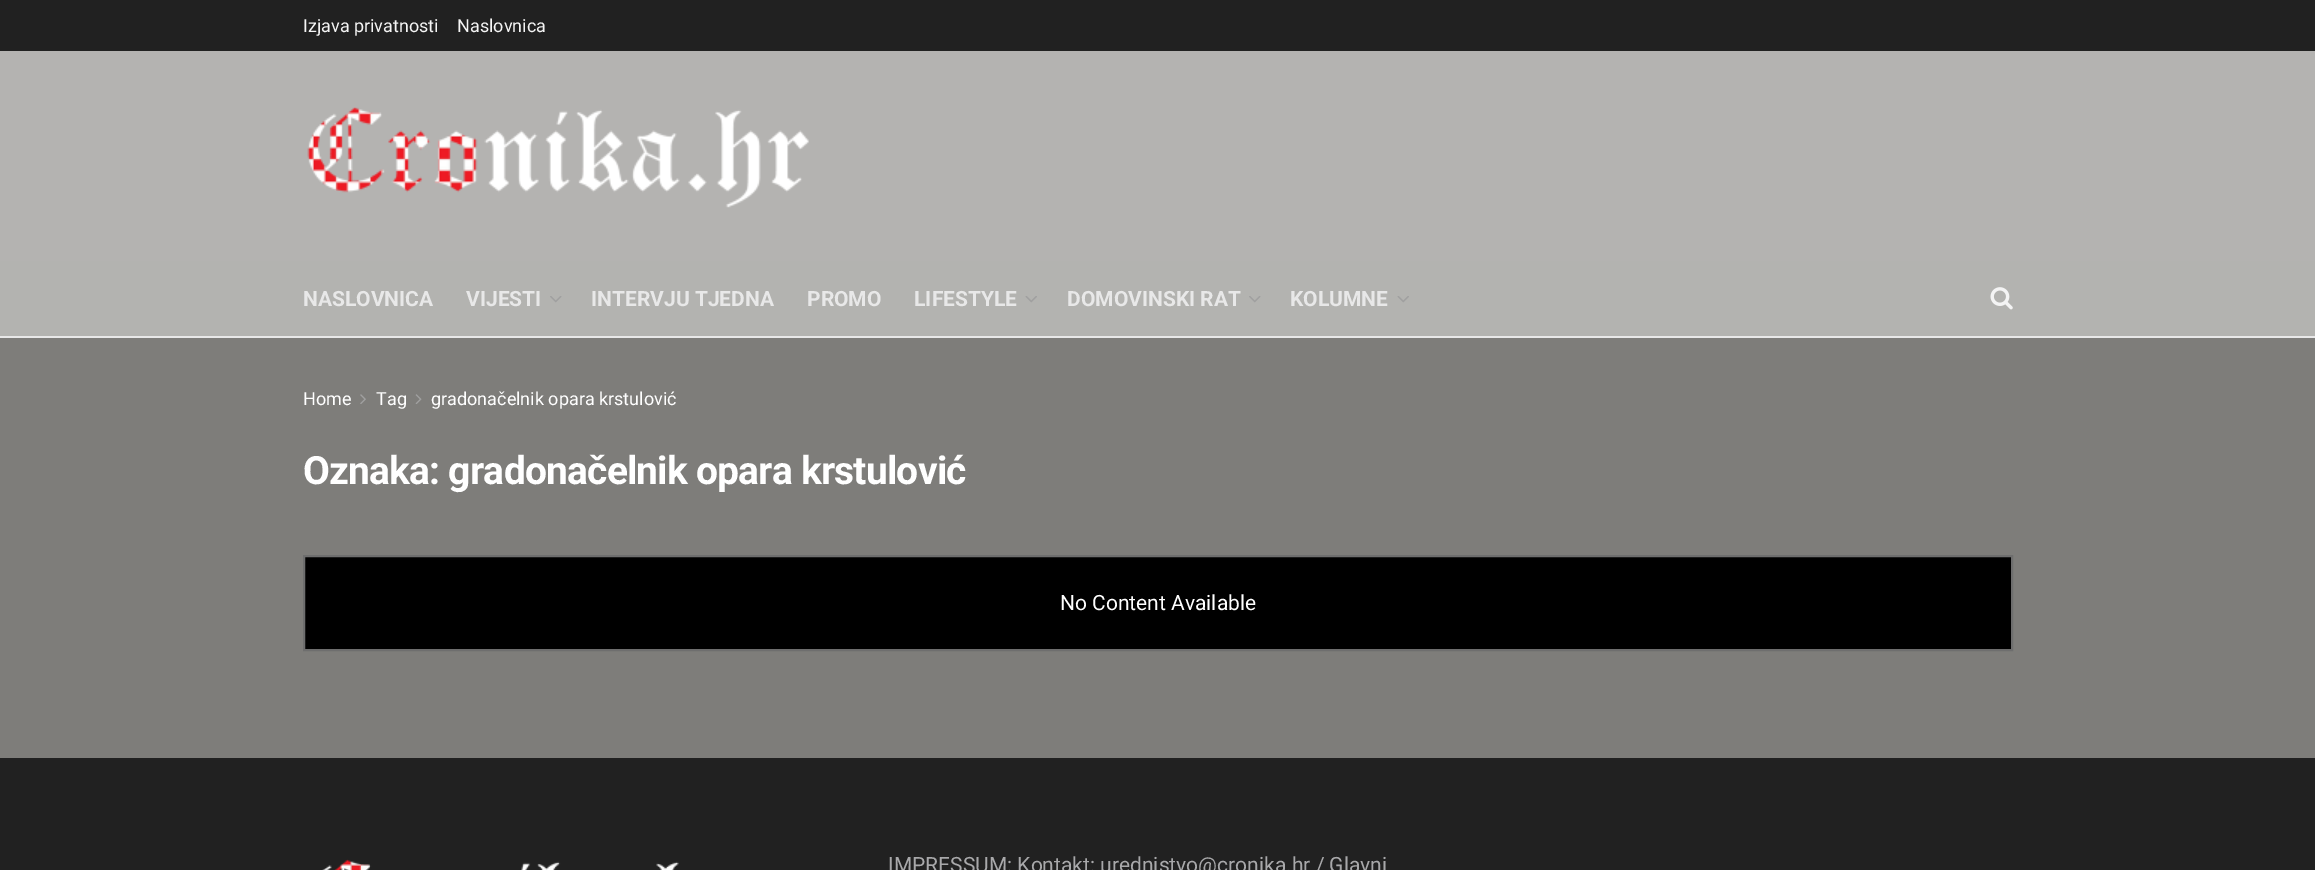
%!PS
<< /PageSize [2315 870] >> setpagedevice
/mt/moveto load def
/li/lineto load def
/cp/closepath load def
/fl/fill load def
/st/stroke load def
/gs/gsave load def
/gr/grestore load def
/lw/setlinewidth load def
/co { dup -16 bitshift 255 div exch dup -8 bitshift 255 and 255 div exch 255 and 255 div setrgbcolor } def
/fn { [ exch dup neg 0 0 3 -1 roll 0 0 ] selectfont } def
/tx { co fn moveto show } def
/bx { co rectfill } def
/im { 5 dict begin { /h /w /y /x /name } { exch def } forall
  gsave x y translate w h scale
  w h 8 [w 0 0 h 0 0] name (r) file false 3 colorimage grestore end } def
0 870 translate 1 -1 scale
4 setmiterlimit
0 0 2315 870 16#7E7D7A bx
0 0 2315 51 16#212121 bx
0 51 2315 210 16#B4B3B1 bx
(media/1.raw) 307 107 502 101 im
0 261 2315 75 16#B3B3B0 bx
0 336 2315 2 16#E8E8E8 bx
(media/2.raw) 550 296 12 7 im
(media/3.raw) 1025 296 12 7 im
(media/2.raw) 1249 296 12 7 im
(media/3.raw) 1397 296 12 7 im
(media/4.raw) 1990 287 23 23 im
(media/5.raw) 360 394 6 10 im
(media/6.raw) 415 394 7 10 im
16#000000 co
304 556 mt 2012 556 li 2012 650 li 304 650 li cp gs fl gr
16#6E6E6E co
2 lw
st
0 758 2315 112 16#212121 bx
(media/7.raw) 322 859 357 11 im
(Izjava privatnosti) 303 32 /Roboto-Regular 18 16#F5F5F5 tx
(Naslovnica) 457 32 /Roboto-Regular 18 16#F5F5F5 tx
(NASLOVNICA) 303 306 /Roboto-Bold 21 16#E8E8E8 tx
(VIJESTI) 466 306 /Roboto-Bold 21 16#E8E8E8 tx
(INTERVJU TJEDNA) 591 306 /Roboto-Bold 21 16#E8E8E8 tx
(PROMO) 807 306 /Roboto-Bold 21 16#E8E8E8 tx
(LIFESTYLE) 914 306 /Roboto-Bold 21 16#E8E8E8 tx
(DOMOVINSKI RAT) 1067 306 /Roboto-Bold 21 16#E8E8E8 tx
(KOLUMNE) 1290 306 /Roboto-Bold 21 16#E8E8E8 tx
(Home) 303 405 /Roboto-Regular 18 16#FFFFFF tx
(Tag) 376 405 /Roboto-Regular 18 16#FFFFFF tx
(gradonačelnik opara krstulović) 431 405 /Roboto-Regular 18 16#FFFFFF tx
/Roboto-Bold 39 fn
303 484 mt -.8 0 (Oznaka: gradonačelnik opara krstulović) ashow
(No Content Available) 1060 610 /Roboto-Regular 21 16#FFFFFF tx
(IMPRESSUM: Kontakt: urednistvo@cronika.hr / Glavni) 888 872 /Roboto-Regular 21 16#A8A8AA tx
showpage
